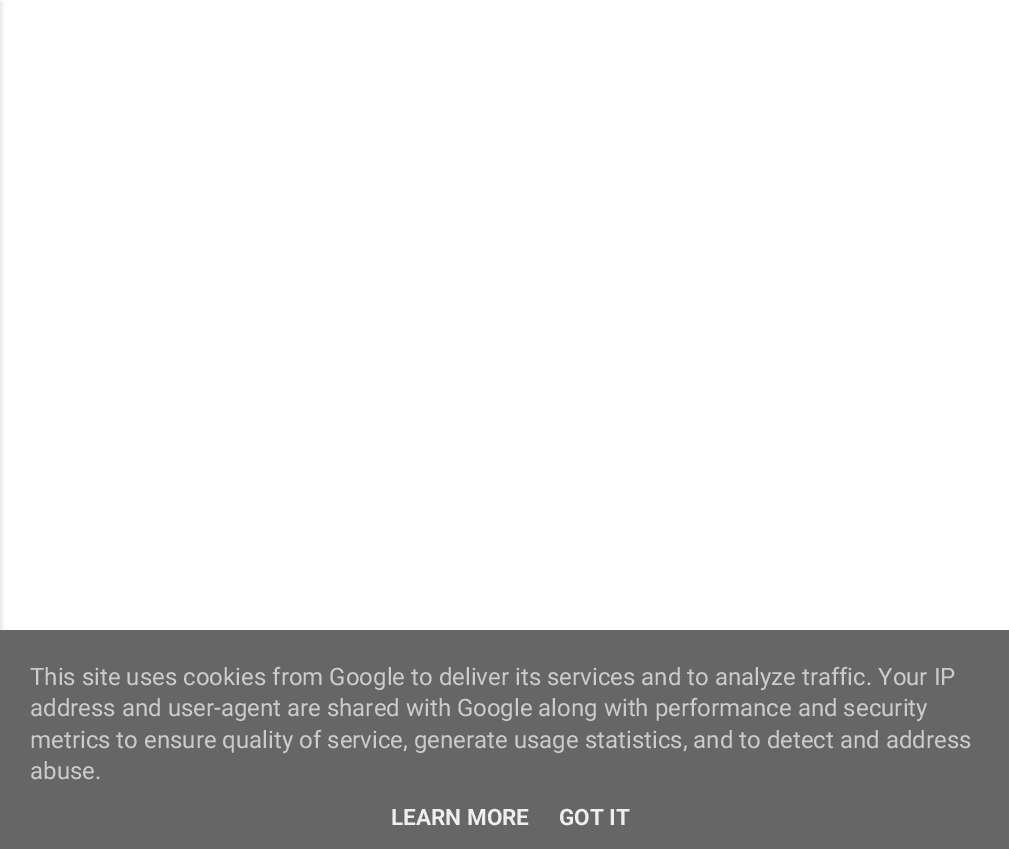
%!PS
<< /PageSize [1009 849] /PageUsesTransparency true >> setpagedevice
/co { dup -16 bitshift 255 div exch dup -8 bitshift 255 and 255 div exch 255 and 255 div setrgbcolor } def
/fn { [ exch dup neg 0 0 3 -1 roll 0 0 ] selectfont } def
/tx { co fn moveto show } def
/bx { co rectfill } def
/al { dup .setfillconstantalpha .setstrokeconstantalpha } def
/rr { 5 dict begin { /r /h /w /y /x } { exch def } forall
  x r add y moveto x w add y 2 copy h add r arct x w add y h add x 1 index r arct
  x y h add x y r arct x y 2 copy exch w add exch r arct closepath end } def
/sh { 12 dict begin { /a /b /q /h /w /y /x } { exch def } forall gsave /was 0 def
  9 -2 -9 { dup b mul 4 div /e exch def 1 sub .425 mul 2.718 exch exp 1 add a .99 .min exch div /now exch def
    1 1 now sub 1 was sub div sub al /was now def
    w h .min e 2 mul add 0 gt { x e sub y e sub w e 2 mul add h e 2 mul add
      q e add b .6 mul add w h .min 2 div e add .min 0 .max rr fill } if } for grestore end } def
0 .pushpdf14devicefilter
0 849 translate 1 -1 scale
4 setmiterlimit
0 0 1009 849 16#FFFFFF bx
16#000000 co
-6 2 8 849 0 2 .1 sh
0 630 1009 219 16#666666 bx
(This site uses cookies from Google to deliver its services and to analyze traffic. Your IP) 30 685 /Roboto-Regular 24 16#CCCCCC tx
(address and user-agent are shared with Google along with performance and security) 30 716 /Roboto-Regular 24 16#CCCCCC tx
(metrics to ensure quality of service, generate usage statistics, and to detect and address) 30 748 /Roboto-Regular 24 16#CCCCCC tx
(abuse.) 30 779 /Roboto-Regular 24 16#CCCCCC tx
(LEARN MORE) 391 825 /Roboto-Bold 22.5 16#EEEEEE tx
(GOT IT) 559 825 /Roboto-Bold 22.5 16#EEEEEE tx
.poppdf14devicefilter showpage
